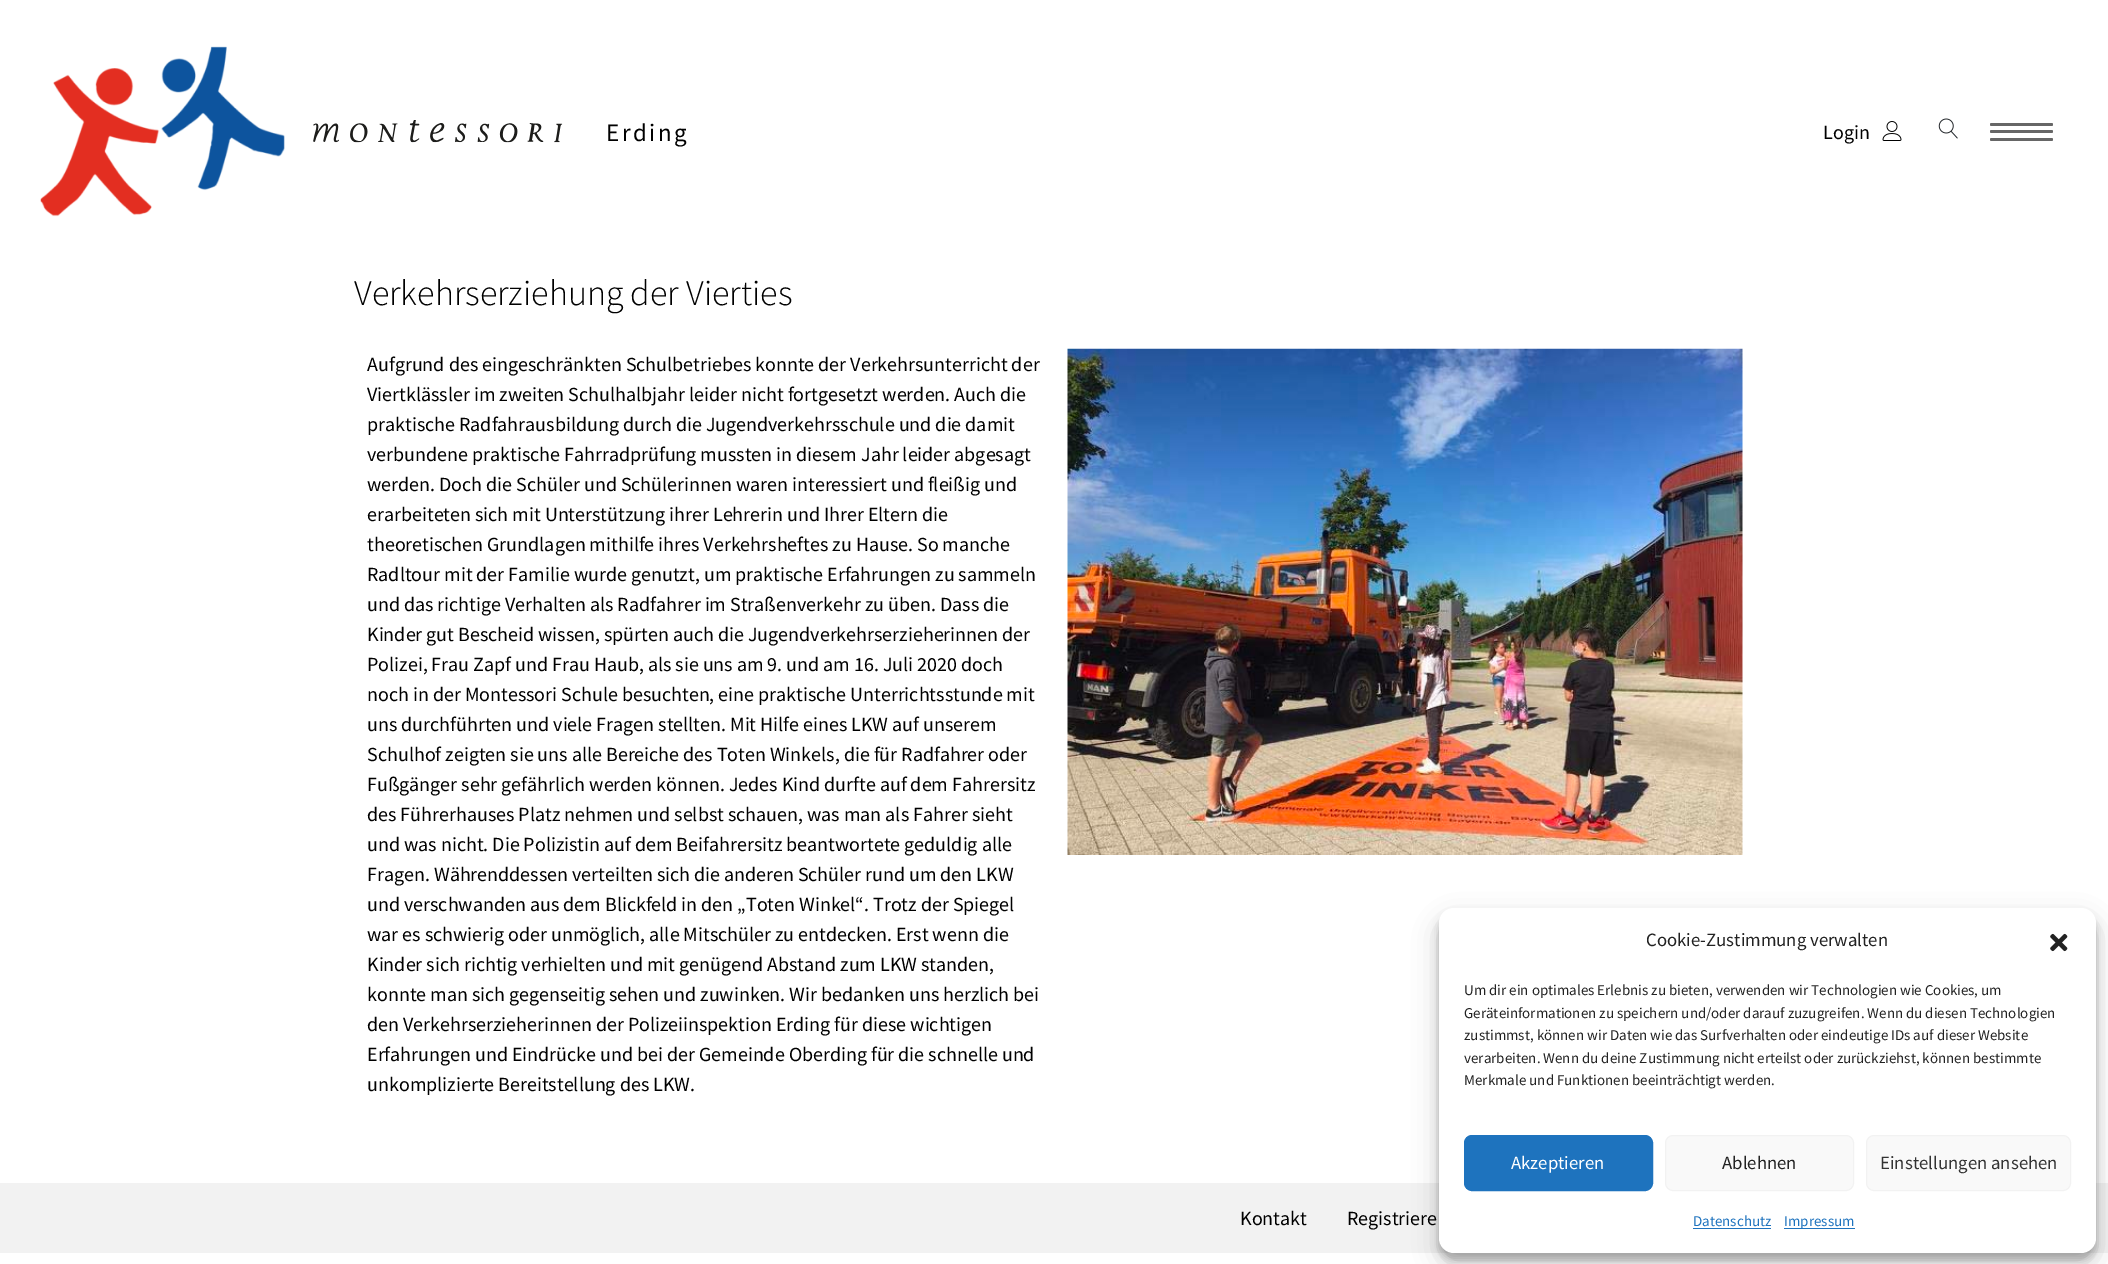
%!PS
<< /PageSize [2108 1264] /PageUsesTransparency true >> setpagedevice
/mt/moveto load def
/fl/fill load def
/st/stroke load def
/gs/gsave load def
/gr/grestore load def
/co { dup -16 bitshift 255 div exch dup -8 bitshift 255 and 255 div exch 255 and 255 div setrgbcolor } def
/fn { [ exch dup neg 0 0 3 -1 roll 0 0 ] selectfont } def
/tx { co fn moveto show } def
/bx { co rectfill } def
/al { dup .setfillconstantalpha .setstrokeconstantalpha } def
/rr { 5 dict begin { /r /h /w /y /x } { exch def } forall
  x r add y moveto x w add y 2 copy h add r arct x w add y h add x 1 index r arct
  x y h add x y r arct x y 2 copy exch w add exch r arct closepath end } def
/sh { 12 dict begin { /a /b /q /h /w /y /x } { exch def } forall gsave /was 0 def
  9 -2 -9 { dup b mul 4 div /e exch def 1 sub .425 mul 2.718 exch exp 1 add a .99 .min exch div /now exch def
    1 1 now sub 1 was sub div sub al /was now def
    w h .min e 2 mul add 0 gt { x e sub y e sub w e 2 mul add h e 2 mul add
      q e add b .6 mul add w h .min 2 div e add .min 0 .max rr fill } if } for grestore end } def
/im { 5 dict begin { /h /w /y /x /name } { exch def } forall
  gsave x y translate w h scale
  w h 8 [w 0 0 h 0 0] name (r) file false 3 colorimage grestore end } def
0 .pushpdf14devicefilter
0 1264 translate 1 -1 scale
4 setmiterlimit
0 0 2108 1264 16#FFFFFF bx
(media/1.raw) 40 46 245 171 im
(media/2.raw) 313 120 250 23 im
(media/3.raw) 1882 121 20 20 im
(media/4.raw) 1938 118 20 21 im
16#666666 co
1990 130 63 3 1.5 rr fl
1990 123 63 3 1.5 rr fl
1990 138 63 3 1.5 rr fl
(media/5.raw) 1067 348 676 507 im
0 1183 2108 70 16#F2F2F2 bx
16#000000 co
1439 915 657 345 15 4 .23 sh
1439 920 657 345 15 12.5 .19 sh
16#FFFFFF co
1439 908 657 345 15 rr fl
(media/6.raw) 2050 933 18 19 im
16#1E73BE co
1464.5 1135.5 188 55 7.5 rr gs fl gr
st
16#F9F9F9 co
1665.5 1135.5 188 55 7.5 rr gs fl gr
16#F2F2F2 co
st
16#F9F9F9 co
1866.5 1135.5 204 55 7.5 rr gs fl gr
16#F2F2F2 co
st
1693 1228 78 1 16#1E73BE bx
1784 1228 71 1 16#1E73BE bx
/SourceSansPro-Regular 25 fn
16#000000 co
606 141 mt 2.5 0 (Erding) ashow
(Login) 1823 139 /SourceSansPro-Regular 20 16#000000 tx
(Verkehrserziehung der Vierties) 354 305 /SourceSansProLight-Light 36 16#000000 tx
(Aufgrund des eingeschränkten Schulbetriebes konnte der Verkehrsunterricht der) 367 371 /SourceSansPro-Regular 20 16#000000 tx
(Viertklässler im zweiten Schulhalbjahr leider nicht fortgesetzt werden. Auch die) 367 401 /SourceSansPro-Regular 20 16#000000 tx
(praktische Radfahrausbildung durch die Jugendverkehrsschule und die damit) 367 431 /SourceSansPro-Regular 20 16#000000 tx
(verbundene praktische Fahrradprüfung mussten in diesem Jahr leider abgesagt) 367 461 /SourceSansPro-Regular 20 16#000000 tx
(werden. Doch die Schüler und Schülerinnen waren interessiert und fleißig und) 367 491 /SourceSansPro-Regular 20 16#000000 tx
(erarbeiteten sich mit Unterstützung ihrer Lehrerin und Ihrer Eltern die) 367 521 /SourceSansPro-Regular 20 16#000000 tx
(theoretischen Grundlagen mithilfe ihres Verkehrsheftes zu Hause. So manche) 367 551 /SourceSansPro-Regular 20 16#000000 tx
(Radltour mit der Familie wurde genutzt, um praktische Erfahrungen zu sammeln) 367 581 /SourceSansPro-Regular 20 16#000000 tx
(und das richtige Verhalten als Radfahrer im Straßenverkehr zu üben. Dass die) 367 611 /SourceSansPro-Regular 20 16#000000 tx
(Kinder gut Bescheid wissen, spürten auch die Jugendverkehrserzieherinnen der) 367 641 /SourceSansPro-Regular 20 16#000000 tx
(Polizei, Frau Zapf und Frau Haub, als sie uns am 9. und am 16. Juli 2020 doch) 367 671 /SourceSansPro-Regular 20 16#000000 tx
(noch in der Montessori Schule besuchten, eine praktische Unterrichtsstunde mit) 367 701 /SourceSansPro-Regular 20 16#000000 tx
(uns durchführten und viele Fragen stellten. Mit Hilfe eines LKW auf unserem) 367 731 /SourceSansPro-Regular 20 16#000000 tx
(Schulhof zeigten sie uns alle Bereiche des Toten Winkels, die für Radfahrer oder) 367 761 /SourceSansPro-Regular 20 16#000000 tx
(Fußgänger sehr gefährlich werden können. Jedes Kind durfte auf dem Fahrersitz) 367 791 /SourceSansPro-Regular 20 16#000000 tx
(des Führerhauses Platz nehmen und selbst schauen, was man als Fahrer sieht) 367 821 /SourceSansPro-Regular 20 16#000000 tx
(und was nicht. Die Polizistin auf dem Beifahrersitz beantwortete geduldig alle) 367 851 /SourceSansPro-Regular 20 16#000000 tx
(Fragen. Währenddessen verteilten sich die anderen Schüler rund um den LKW) 367 881 /SourceSansPro-Regular 20 16#000000 tx
(und verschwanden aus dem Blickfeld in den „Toten Winkel“. Trotz der Spiegel) 367 911 /SourceSansPro-Regular 20 16#000000 tx
(war es schwierig oder unmöglich, alle Mitschüler zu entdecken. Erst wenn die) 367 941 /SourceSansPro-Regular 20 16#000000 tx
(Kinder sich richtig verhielten und mit genügend Abstand zum LKW standen,) 367 971 /SourceSansPro-Regular 20 16#000000 tx
(konnte man sich gegenseitig sehen und zuwinken. Wir bedanken uns herzlich bei) 367 1001 /SourceSansPro-Regular 20 16#000000 tx
(den Verkehrserzieherinnen der Polizeiinspektion Erding für diese wichtigen) 367 1031 /SourceSansPro-Regular 20 16#000000 tx
(Erfahrungen und Eindrücke und bei der Gemeinde Oberding für die schnelle und) 367 1061 /SourceSansPro-Regular 20 16#000000 tx
(unkomplizierte Bereitstellung des LKW.) 367 1091 /SourceSansPro-Regular 20 16#000000 tx
(Kontakt) 1240 1225 /SourceSansPro-Regular 20 16#000000 tx
(Registriere) 1347 1225 /SourceSansPro-Regular 20 16#000000 tx
(Cookie-Zustimmung verwalten) 1646 946 /SourceSansPro-Regular 18.75 16#222222 tx
(Um dir ein optimales Erlebnis zu bieten, verwenden wir Technologien wie Cookies, um) 1464 995 /SourceSansPro-Regular 15 16#222222 tx
(Geräteinformationen zu speichern und/oder darauf zuzugreifen. Wenn du diesen Technologien) 1464 1018 /SourceSansPro-Regular 15 16#222222 tx
(zustimmst, können wir Daten wie das Surfverhalten oder eindeutige IDs auf dieser Website) 1464 1040 /SourceSansPro-Regular 15 16#222222 tx
(verarbeiten. Wenn du deine Zustimmung nicht erteilst oder zurückziehst, können bestimmte) 1464 1063 /SourceSansPro-Regular 15 16#222222 tx
(Merkmale und Funktionen beeinträchtigt werden.) 1464 1085 /SourceSansPro-Regular 15 16#222222 tx
(Akzeptieren) 1511 1169 /SourceSansPro-Regular 18.75 16#FFFFFF tx
(Ablehnen) 1722 1169 /SourceSansPro-Regular 18.75 16#222222 tx
(Einstellungen ansehen) 1880 1169 /SourceSansPro-Regular 18.75 16#333333 tx
(Datenschutz) 1693 1226 /SourceSansPro-Regular 15 16#1E73BE tx
(Impressum) 1784 1226 /SourceSansPro-Regular 15 16#1E73BE tx
.poppdf14devicefilter showpage
